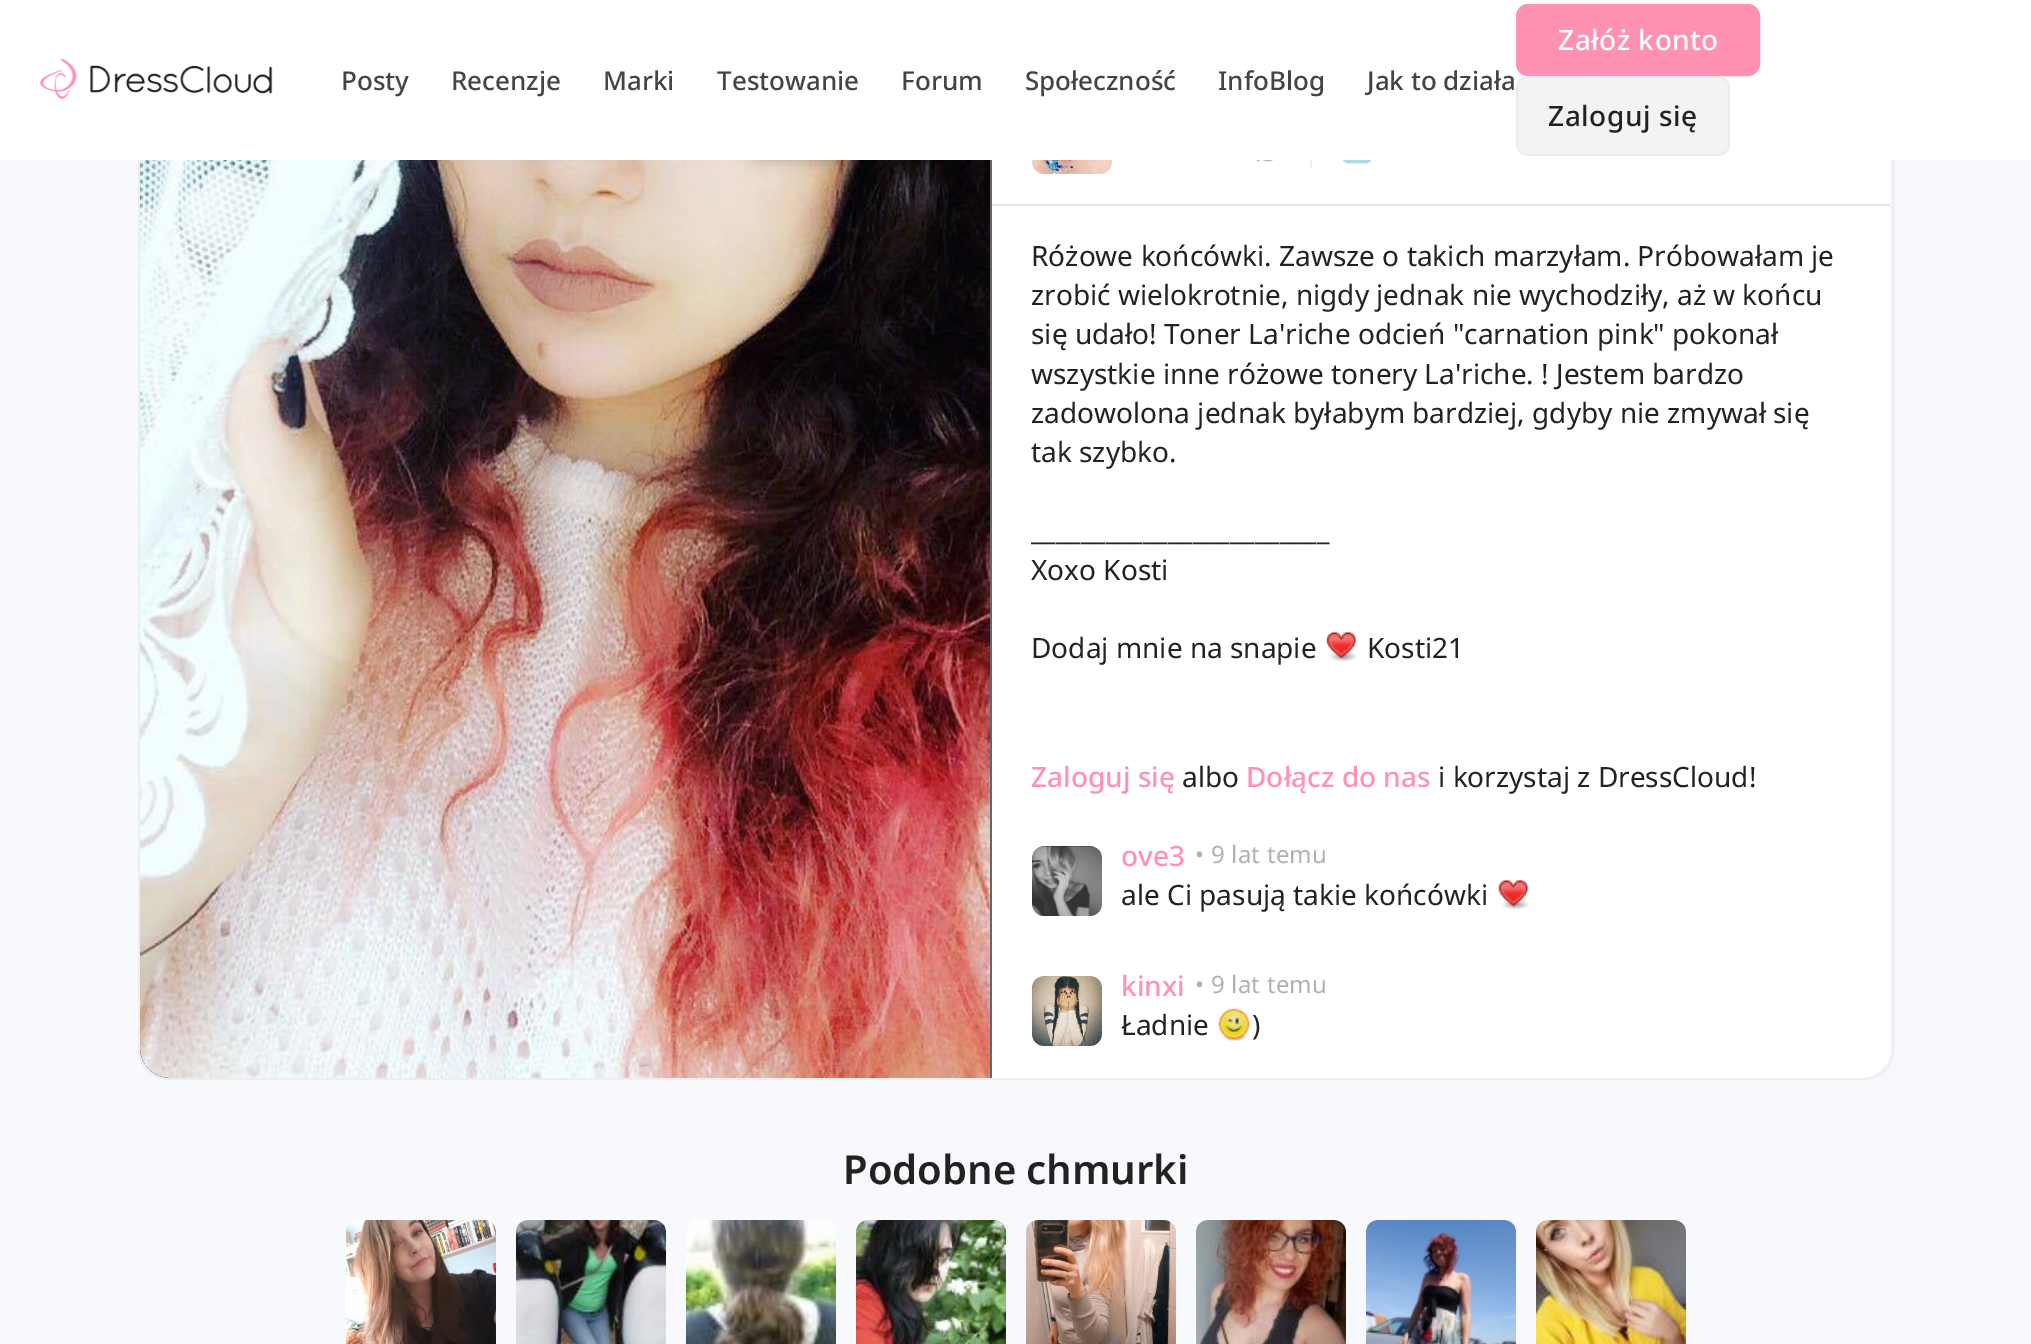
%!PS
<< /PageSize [2031 1344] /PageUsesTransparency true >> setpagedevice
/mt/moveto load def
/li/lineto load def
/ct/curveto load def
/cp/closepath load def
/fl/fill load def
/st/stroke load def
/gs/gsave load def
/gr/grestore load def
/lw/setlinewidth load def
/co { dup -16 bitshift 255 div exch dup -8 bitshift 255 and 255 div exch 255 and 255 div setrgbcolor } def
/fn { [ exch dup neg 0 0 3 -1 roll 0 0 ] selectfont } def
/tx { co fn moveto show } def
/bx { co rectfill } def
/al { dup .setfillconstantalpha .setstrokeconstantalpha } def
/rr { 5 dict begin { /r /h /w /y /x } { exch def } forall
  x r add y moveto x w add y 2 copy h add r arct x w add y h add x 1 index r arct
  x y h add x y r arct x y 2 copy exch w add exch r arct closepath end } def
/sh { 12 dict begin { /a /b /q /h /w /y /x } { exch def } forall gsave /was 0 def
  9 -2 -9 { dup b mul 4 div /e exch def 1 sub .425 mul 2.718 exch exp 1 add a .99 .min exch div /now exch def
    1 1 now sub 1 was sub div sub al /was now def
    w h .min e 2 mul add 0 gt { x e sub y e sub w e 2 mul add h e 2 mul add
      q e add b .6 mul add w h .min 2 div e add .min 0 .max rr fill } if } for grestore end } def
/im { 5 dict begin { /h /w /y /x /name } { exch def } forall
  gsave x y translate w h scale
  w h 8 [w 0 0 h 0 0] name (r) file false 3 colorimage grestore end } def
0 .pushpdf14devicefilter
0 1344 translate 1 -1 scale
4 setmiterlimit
0 0 2031 1344 16#F8F9FC bx
16#EEEEEE co
2 lw
139 53 1754 1026 29 rr st
16#000000 co
170 54 mt 990 54 li 990 1078 li 170 1078 li 153.5 1078 140 1064.5 140 1048 ct 140 84 li 140 67.5 153.5 54 170 54 ct cp fl
(media/2.raw) 140 160 850 918 im
16#FFFFFF co
990 54 mt 1860 54 li 1876.5 54 1890 67.5 1890 84 ct 1890 1048 li 1890 1064.5 1876.5 1078 1860 1078 ct 990 1078 li cp fl
990 160 2 918 16#666666 bx
16#000000 co
742 90 228 70 20 8 .24 sh
0 0 2031 160 16#FFFFFF bx
(media/1.raw) 40 58 233 41 im
16#FF91B3 co
1517 5 242 70 11 rr gs fl gr
st
16#F2F3F5 co
1516 76 214 80 12 rr fl
0.5 al
16#E4E6EB co
1517 77 212 78 11 rr st
1 al
(media/3.raw) 1032 160 80 14 im
1310 160 2 8 16#EEEEEE bx
(media/4.raw) 1256 160 18 2 im
(media/5.raw) 1343 160 29 4 im
992 204 898 2 16#E1E8ED bx
(media/6.raw) 1326 632 31 30 im
(media/7.raw) 1032 846 70 70 im
(media/8.raw) 1498 880 31 30 im
(media/9.raw) 1032 976 70 70 im
(media/10.raw) 1218 1008 32 33 im
(media/11.raw) 346 1220 150 124 im
(media/12.raw) 516 1220 150 124 im
(media/13.raw) 686 1220 150 124 im
(media/14.raw) 856 1220 150 124 im
(media/15.raw) 1026 1220 150 124 im
(media/16.raw) 1196 1220 150 124 im
(media/17.raw) 1366 1220 150 124 im
(media/18.raw) 1536 1220 150 124 im
(Posty) 341 90 /NotoSans-Medium 26 16#444444 tx
(Recenzje) 451 90 /NotoSans-Medium 26 16#444444 tx
(Marki) 603 90 /NotoSans-Medium 26 16#444444 tx
(Testowanie) 717 90 /NotoSans-Medium 26 16#444444 tx
(Forum) 901 90 /NotoSans-Medium 26 16#444444 tx
(Społeczność) 1025 90 /NotoSans-Medium 26 16#444444 tx
(InfoBlog) 1218 90 /NotoSans-Medium 26 16#444444 tx
(Jak to działa) 1367 90 /NotoSans-Medium 26 16#444444 tx
/NotoSans-Medium 28 fn
16#FFFFFF co
1558 50 mt .5 0 (Załóż konto) ashow
16#222222 co
1548 126 mt .5 0 (Zaloguj się) ashow
(Różowe końcówki. Zawsze o takich marzyłam. Próbowałam je) 1031 266 /NotoSans-Regular 28 16#222222 tx
(zrobić wielokrotnie, nigdy jednak nie wychodziły, aż w końcu) 1031 305 /NotoSans-Regular 28 16#222222 tx
(się udało! Toner La'riche odcień "carnation pink" pokonał) 1031 344 /NotoSans-Regular 28 16#222222 tx
(wszystkie inne różowe tonery La'riche. ! Jestem bardzo) 1031 384 /NotoSans-Regular 28 16#222222 tx
(zadowolona jednak byłabym bardziej, gdyby nie zmywał się) 1031 423 /NotoSans-Regular 28 16#222222 tx
(tak szybko.) 1031 462 /NotoSans-Regular 28 16#222222 tx
(________________________) 1031 540 /NotoSans-Regular 28 16#222222 tx
(Xoxo Kosti) 1031 580 /NotoSans-Regular 28 16#222222 tx
(Dodaj mnie na snapie) 1031 658 /NotoSans-Regular 28 16#222222 tx
(Kosti21) 1367 658 /NotoSans-Regular 28 16#222222 tx
(Zaloguj się) 1031 787 /NotoSans-Medium 28 16#FF91B3 tx
(albo) 1182 787 /NotoSans-Regular 28 16#222222 tx
(Dołącz do nas) 1246 787 /NotoSans-Medium 28 16#FF91B3 tx
(i korzystaj z DressCloud!) 1438 787 /NotoSans-Regular 28 16#222222 tx
(ove3) 1121 866 /NotoSans-Medium 28 16#FF91B3 tx
/NotoSans-Regular 24 fn
16#B0B0B0 co
1195 863 mt .25 0 (• 9 lat temu) ashow
(ale Ci pasują takie końcówki) 1121 905 /NotoSans-Regular 28 16#222222 tx
(kinxi) 1121 996 /NotoSans-Medium 28 16#FF91B3 tx
/NotoSans-Regular 24 fn
16#B0B0B0 co
1195 993 mt .25 0 (• 9 lat temu) ashow
(Ładnie) 1121 1035 /NotoSans-Regular 28 16#222222 tx
(\)) 1252 1035 /NotoSans-Regular 28 16#222222 tx
(Podobne chmurki) 843 1184 /NotoSans-SemiBold 40 16#222222 tx
.poppdf14devicefilter showpage
